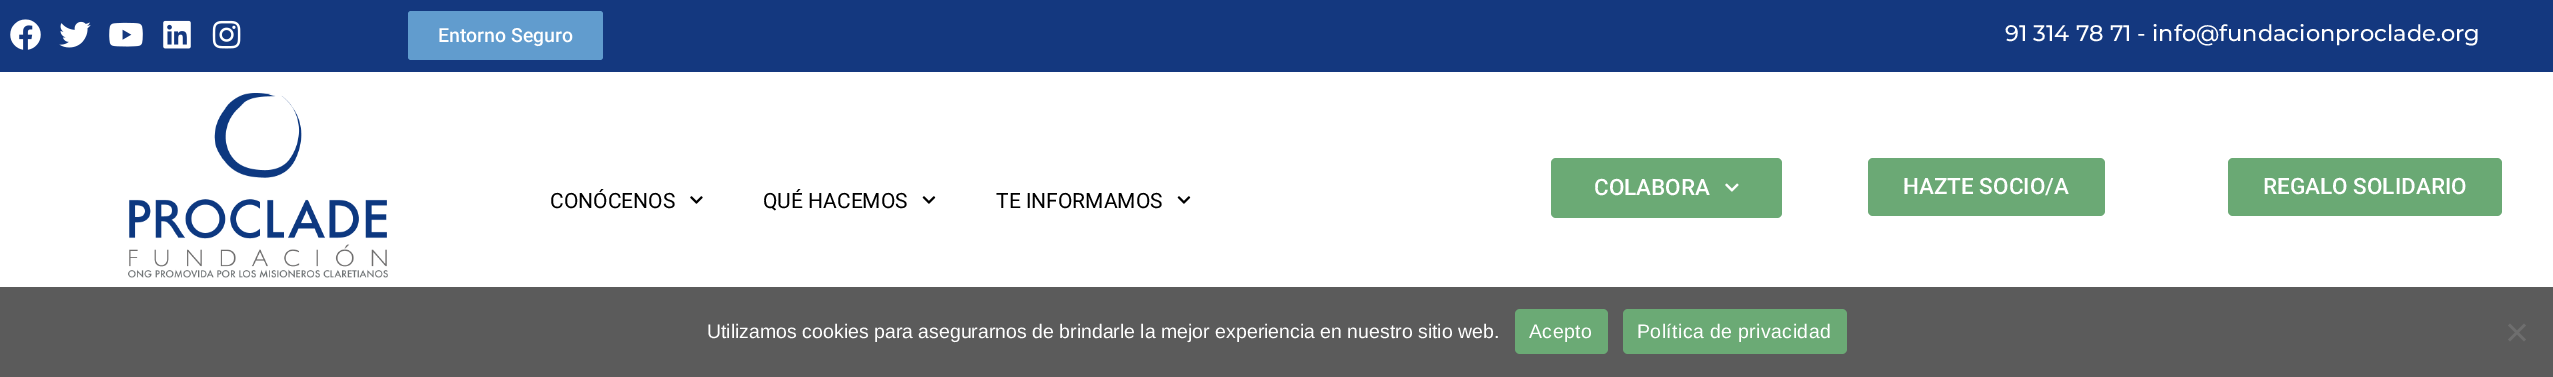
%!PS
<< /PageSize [2553 377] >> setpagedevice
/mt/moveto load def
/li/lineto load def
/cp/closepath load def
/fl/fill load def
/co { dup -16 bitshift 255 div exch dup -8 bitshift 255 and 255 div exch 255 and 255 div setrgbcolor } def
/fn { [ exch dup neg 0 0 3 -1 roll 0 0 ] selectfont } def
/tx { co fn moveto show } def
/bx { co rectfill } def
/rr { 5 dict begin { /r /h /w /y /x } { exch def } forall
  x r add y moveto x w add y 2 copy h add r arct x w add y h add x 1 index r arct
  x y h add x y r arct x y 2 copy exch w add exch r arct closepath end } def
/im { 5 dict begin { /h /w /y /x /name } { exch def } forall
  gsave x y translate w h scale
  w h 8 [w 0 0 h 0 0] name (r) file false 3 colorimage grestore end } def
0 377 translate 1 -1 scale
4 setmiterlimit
0 0 2553 377 16#FFFFFF bx
0 0 2553 72 16#14387F bx
(media/1.raw) 10 19 31 31 im
(media/2.raw) 59 21 32 27 im
(media/3.raw) 109 22 34 25 im
(media/4.raw) 163 20 28 29 im
(media/5.raw) 212 20 29 29 im
16#619CCE co
408 11 195 49 3 rr fl
(media/6.raw) 128 93 260 185 im
(media/7.raw) 690 196 13 8 im
(media/8.raw) 922 196 14 8 im
(media/8.raw) 1177 196 14 8 im
16#6BAA75 co
1551 158 231 60 5 rr fl
(media/9.raw) 1725 183 14 9 im
16#6BA975 co
1868 158 237 58 5 rr fl
16#6AA974 co
2228 158 274 58 5 rr fl
0 287 2553 90 16#5B5B5B bx
16#6BAA75 co
1515 309 93 45 5 rr fl
1623 309 224 45 5 rr fl
16#6E6E6E co
2524 323.5 mt 2526 325.5 li 2510 341.5 li 2508 339.5 li cp fl
2508 325.5 mt 2510 323.5 li 2526 339.5 li 2524 341.5 li cp fl
(Entorno Seguro) 438 42 /Roboto-Medium 19.5 16#FFFFFF tx
(91 314 78 71 - info@fundacionproclade.org) 2005 41 /Montserrat-Medium 22.5 16#FFFFFF tx
(CONÓCENOS) 550 208 /Roboto-Regular 21 16#000000 tx
(QUÉ HACEMOS) 763 208 /Roboto-Regular 21 16#000000 tx
(TE INFORMAMOS) 996 208 /Roboto-Regular 21 16#000000 tx
(COLABORA) 1594 195 /Roboto-Medium 22.5 16#FFFFFF tx
(HAZTE SOCIO/A) 1903 194 /Roboto-Medium 22.5 16#FFFFFF tx
(REGALO SOLIDARIO) 2263 194 /Roboto-Medium 22.5 16#FFFFFF tx
(Utilizamos cookies para asegurarnos de brindarle la mejor experiencia en nuestro sitio web.) 707 338 /LiberationSans-Regular 19.5 16#FFFFFF tx
1529 338 mt .4 0 (Acepto) ashow
1637 338 mt .4 0 (Política de privacidad) ashow
showpage
